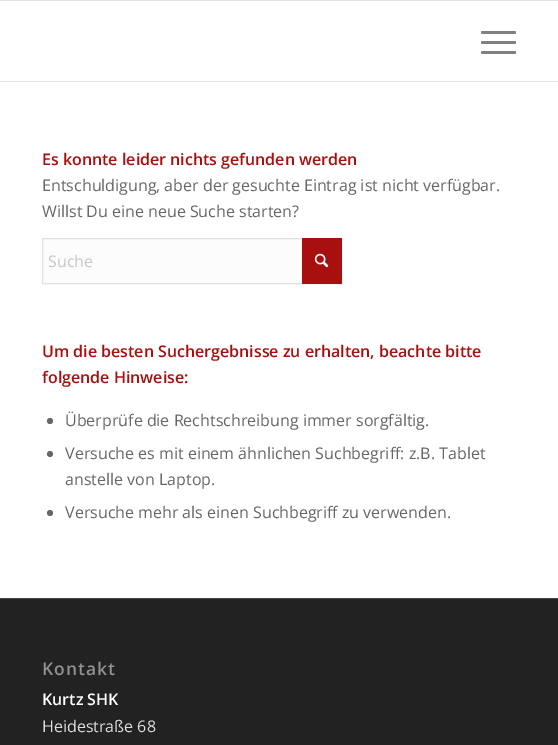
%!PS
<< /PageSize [558 745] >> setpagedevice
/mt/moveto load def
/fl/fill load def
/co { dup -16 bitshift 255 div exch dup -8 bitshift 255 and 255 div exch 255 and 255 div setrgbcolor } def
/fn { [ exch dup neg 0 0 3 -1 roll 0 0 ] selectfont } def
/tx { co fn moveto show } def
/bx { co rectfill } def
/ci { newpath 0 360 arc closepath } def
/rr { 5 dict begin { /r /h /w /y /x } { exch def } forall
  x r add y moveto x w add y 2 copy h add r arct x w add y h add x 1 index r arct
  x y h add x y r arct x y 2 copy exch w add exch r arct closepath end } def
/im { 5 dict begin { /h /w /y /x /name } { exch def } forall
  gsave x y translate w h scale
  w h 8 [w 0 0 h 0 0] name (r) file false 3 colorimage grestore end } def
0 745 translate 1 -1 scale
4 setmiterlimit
0 0 558 745 16#FFFFFF bx
0 0 558 1 16#E1E1E1 bx
0 81 558 1 16#E1E1E1 bx
16#808080 co
481 41 35 3 1.5 rr fl
481 31 35 3 1.5 rr fl
481 51 35 3 1.5 rr fl
43 239 259 44 16#FCFCFC bx
16#E1E1E1 co
42.5 238.5 299 45 rectstroke
302 238 40 46 16#A81010 bx
(media/1.raw) 314 253 15 15 im
16#666666 co
50 421 3 ci fl
50 454 3 ci fl
50 513 3 ci fl
0 599 558 146 16#222222 bx
0 598 558 1 16#444444 bx
(Es konnte leider nichts gefunden werden) 42 165 /OpenSans-SemiBold 16 16#A81010 tx
(Entschuldigung, aber der gesuchte Eintrag ist nicht verfügbar.) 42 191 /OpenSans-Regular 16 16#666666 tx
(Willst Du eine neue Suche starten?) 42 217 /OpenSans-Regular 16 16#666666 tx
(Suche) 48 267 /OpenSans-Regular 16 16#C7C7C7 tx
(Um die besten Suchergebnisse zu erhalten, beachte bitte) 42 357 /OpenSans-SemiBold 16 16#A81010 tx
(folgende Hinweise:) 42 383 /OpenSans-SemiBold 16 16#A81010 tx
(Überprüfe die Rechtschreibung immer sorgfältig.) 65 426 /OpenSans-Regular 16 16#666666 tx
(Versuche es mit einem ähnlichen Suchbegriff: z.B. Tablet) 65 459 /OpenSans-Regular 16 16#666666 tx
(anstelle von Laptop.) 65 485 /OpenSans-Regular 16 16#666666 tx
(Versuche mehr als einen Suchbegriff zu verwenden.) 65 518 /OpenSans-Regular 16 16#666666 tx
/OpenSans-SemiBold 17.5 fn
16#919191 co
42 675 mt 1 0 (Kontakt) ashow
(Kurtz SHK) 42 705 /OpenSans-SemiBold 16 16#FFFFFF tx
(Heidestraße 68) 42 732 /OpenSans-Regular 16 16#DDDDDD tx
showpage
